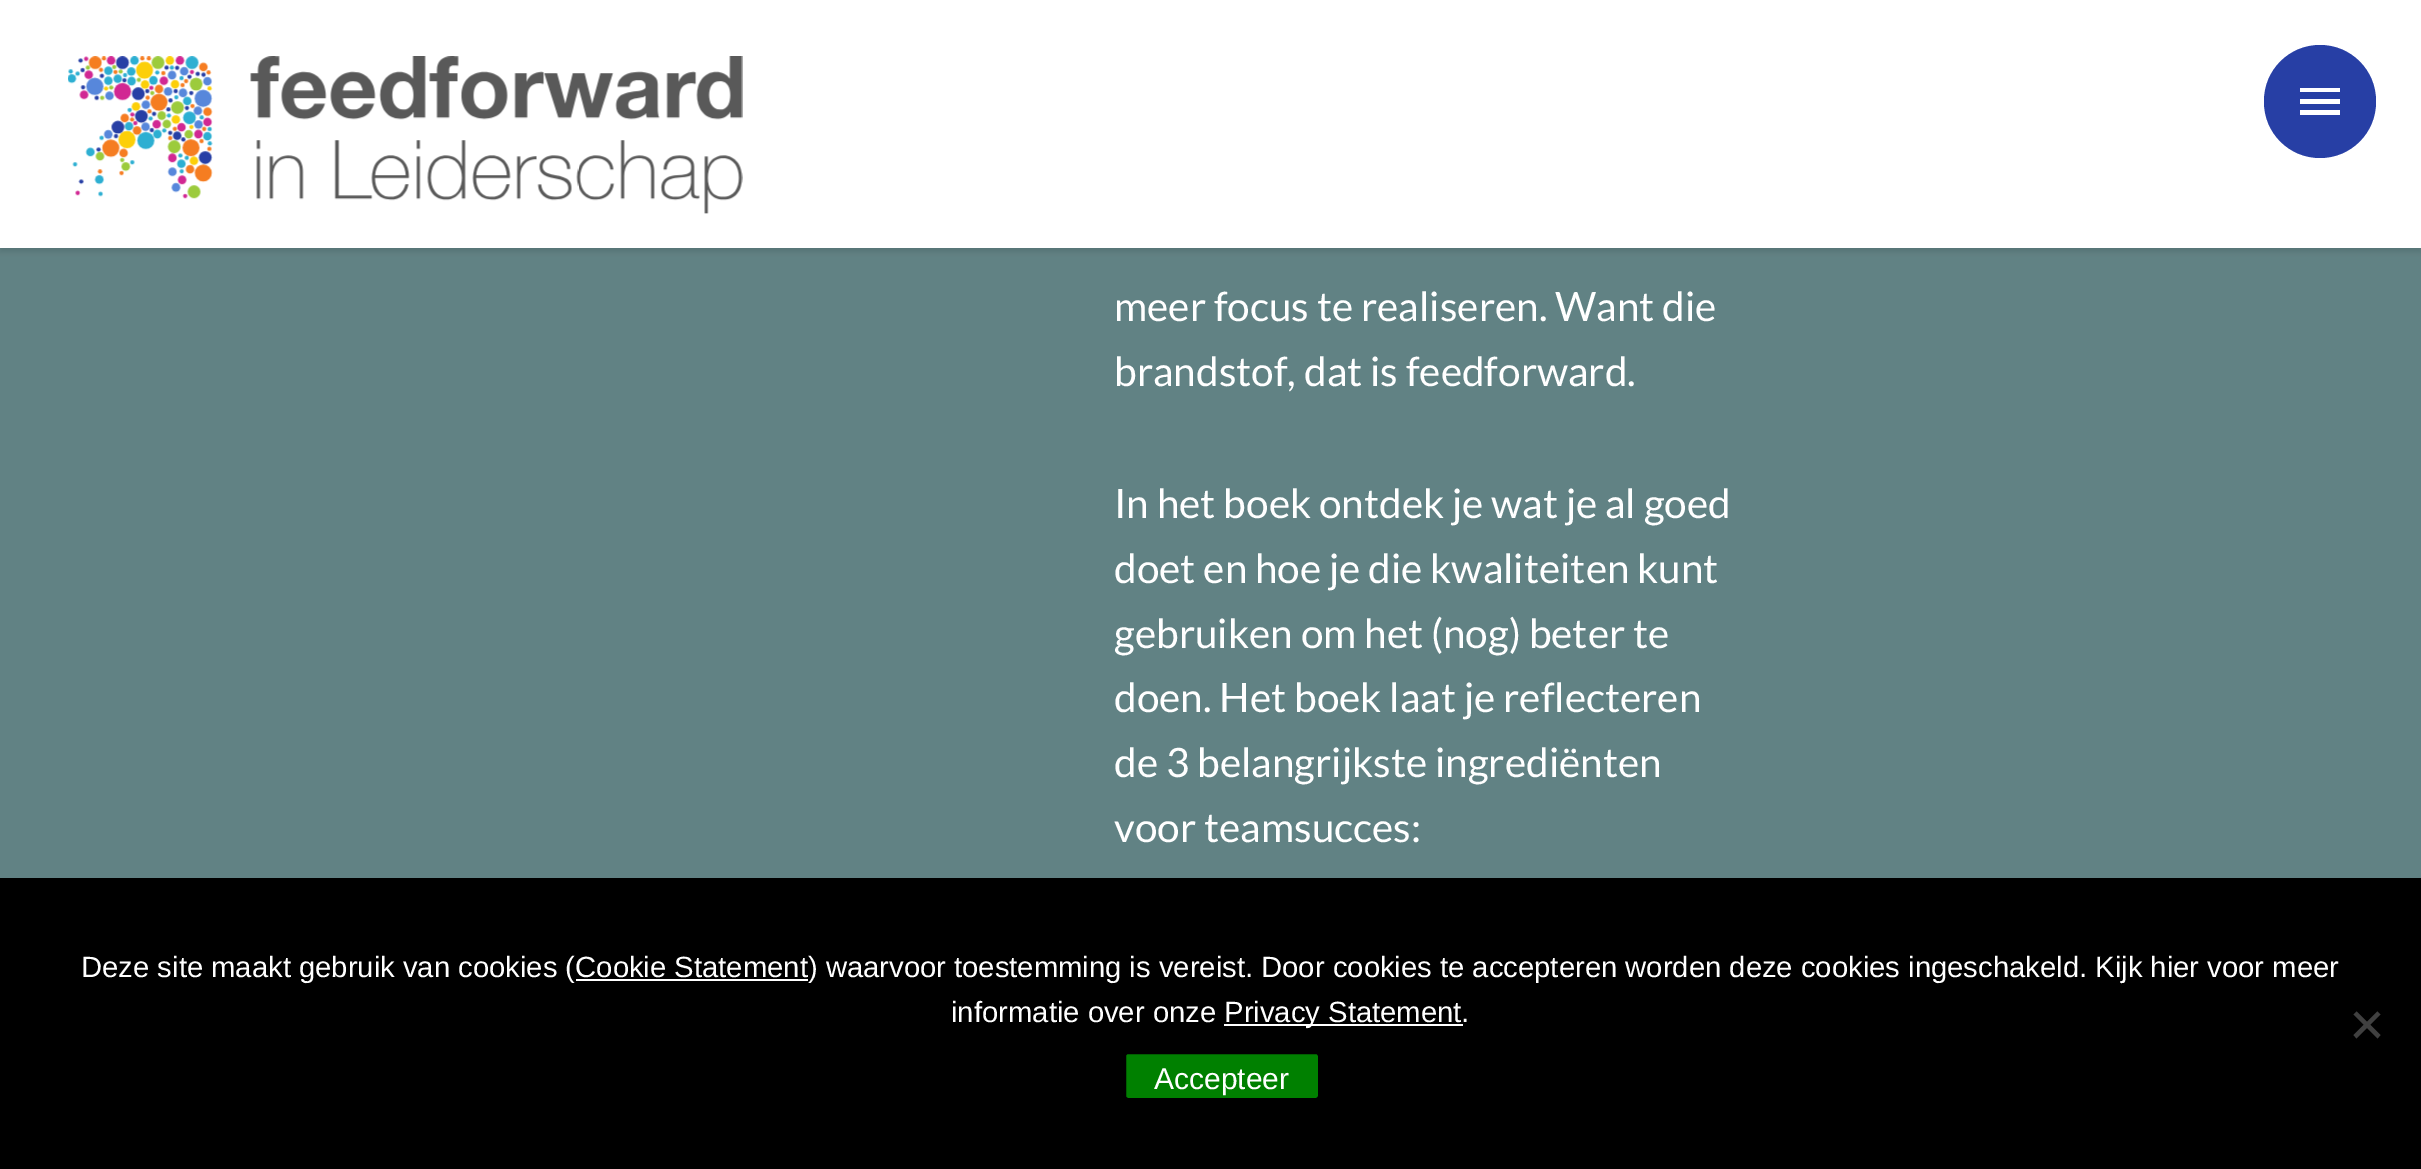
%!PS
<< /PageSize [2421 1169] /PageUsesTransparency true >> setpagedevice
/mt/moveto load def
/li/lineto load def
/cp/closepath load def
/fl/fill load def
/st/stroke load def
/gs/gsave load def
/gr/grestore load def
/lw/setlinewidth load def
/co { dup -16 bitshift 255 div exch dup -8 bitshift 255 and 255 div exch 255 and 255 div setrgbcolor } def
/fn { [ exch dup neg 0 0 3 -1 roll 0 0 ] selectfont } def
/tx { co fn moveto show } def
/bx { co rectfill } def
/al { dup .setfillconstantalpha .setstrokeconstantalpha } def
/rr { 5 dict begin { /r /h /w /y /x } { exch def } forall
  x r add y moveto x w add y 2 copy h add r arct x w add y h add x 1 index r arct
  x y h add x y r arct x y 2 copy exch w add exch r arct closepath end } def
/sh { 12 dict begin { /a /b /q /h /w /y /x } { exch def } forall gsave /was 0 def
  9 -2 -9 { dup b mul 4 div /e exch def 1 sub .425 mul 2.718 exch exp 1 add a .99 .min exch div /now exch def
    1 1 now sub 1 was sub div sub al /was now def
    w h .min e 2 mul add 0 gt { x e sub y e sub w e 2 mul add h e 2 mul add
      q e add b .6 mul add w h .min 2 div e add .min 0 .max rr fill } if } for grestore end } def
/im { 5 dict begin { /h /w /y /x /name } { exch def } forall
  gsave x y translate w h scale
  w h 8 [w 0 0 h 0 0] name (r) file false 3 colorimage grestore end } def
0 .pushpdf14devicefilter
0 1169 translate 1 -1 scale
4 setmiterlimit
0 0 2421 1169 16#618284 bx
16#000000 co
0 5 2421 247 0 2 .1 sh
0 0 2421 248 16#FFFFFF bx
16#273FA5 co
2264 45 112 113 56 rr fl
16#FFFFFF co
2300 115 mt 2340 115 li 2340 110 li 2300 110 li cp 2300 104 mt 2340 104 li 2340 99 li 2300 99 li cp 2300 88 mt 2300 92 li 2340 92 li 2340 88 li cp fl
(media/1.raw) 68 56 675 158 im
0 878 2421 291 16#000000 bx
576 979 232 2 16#FFFFFF bx
1224 1024 239 2 16#FFFFFF bx
16#404040 co
2377.5 1011.5 mt 2380.5 1014.5 li 2356.5 1038.5 li 2353.5 1035 li cp fl
2353.5 1014.5 mt 2356.5 1011.5 li 2380.5 1035 li 2377.5 1038.5 li cp fl
16#008000 co
1123.5 1051.5 197 49 4.5 rr gs fl gr
16#000000 co
5 lw
st
(meer focus te realiseren. Want die) 1114 321 /Lato-Regular 40.5 16#FFFFFF tx
(brandstof, dat is feedforward.) 1114 386 /Lato-Regular 40.5 16#FFFFFF tx
(In het boek ontdek je wat je al goed) 1114 518 /Lato-Regular 40.5 16#FFFFFF tx
(doet en hoe je die kwaliteiten kunt) 1114 583 /Lato-Regular 40.5 16#FFFFFF tx
(gebruiken om het \(nog\) beter te) 1114 648 /Lato-Regular 40.5 16#FFFFFF tx
(doen. Het boek laat je reflecteren) 1114 712 /Lato-Regular 40.5 16#FFFFFF tx
(de 3 belangrijkste ingrediënten) 1114 777 /Lato-Regular 40.5 16#FFFFFF tx
(voor teamsucces:) 1114 842 /Lato-Regular 40.5 16#FFFFFF tx
(Deze site maakt gebruik van cookies \(Cookie Statement\) waarvoor toestemming is vereist. Door cookies te accepteren worden deze cookies ingeschakeld. Kijk hier voor meer) 81 977 /LiberationSans-Regular 29.25 16#FFFFFF tx
(informatie over onze) 951 1022 /LiberationSans-Regular 29.25 16#FFFFFF tx
(Privacy Statement.) 1224 1022 /LiberationSans-Regular 29.25 16#FFFFFF tx
(Accepteer) 1154 1089 /LiberationSans-Regular 30 16#FFFFFF tx
.poppdf14devicefilter showpage
